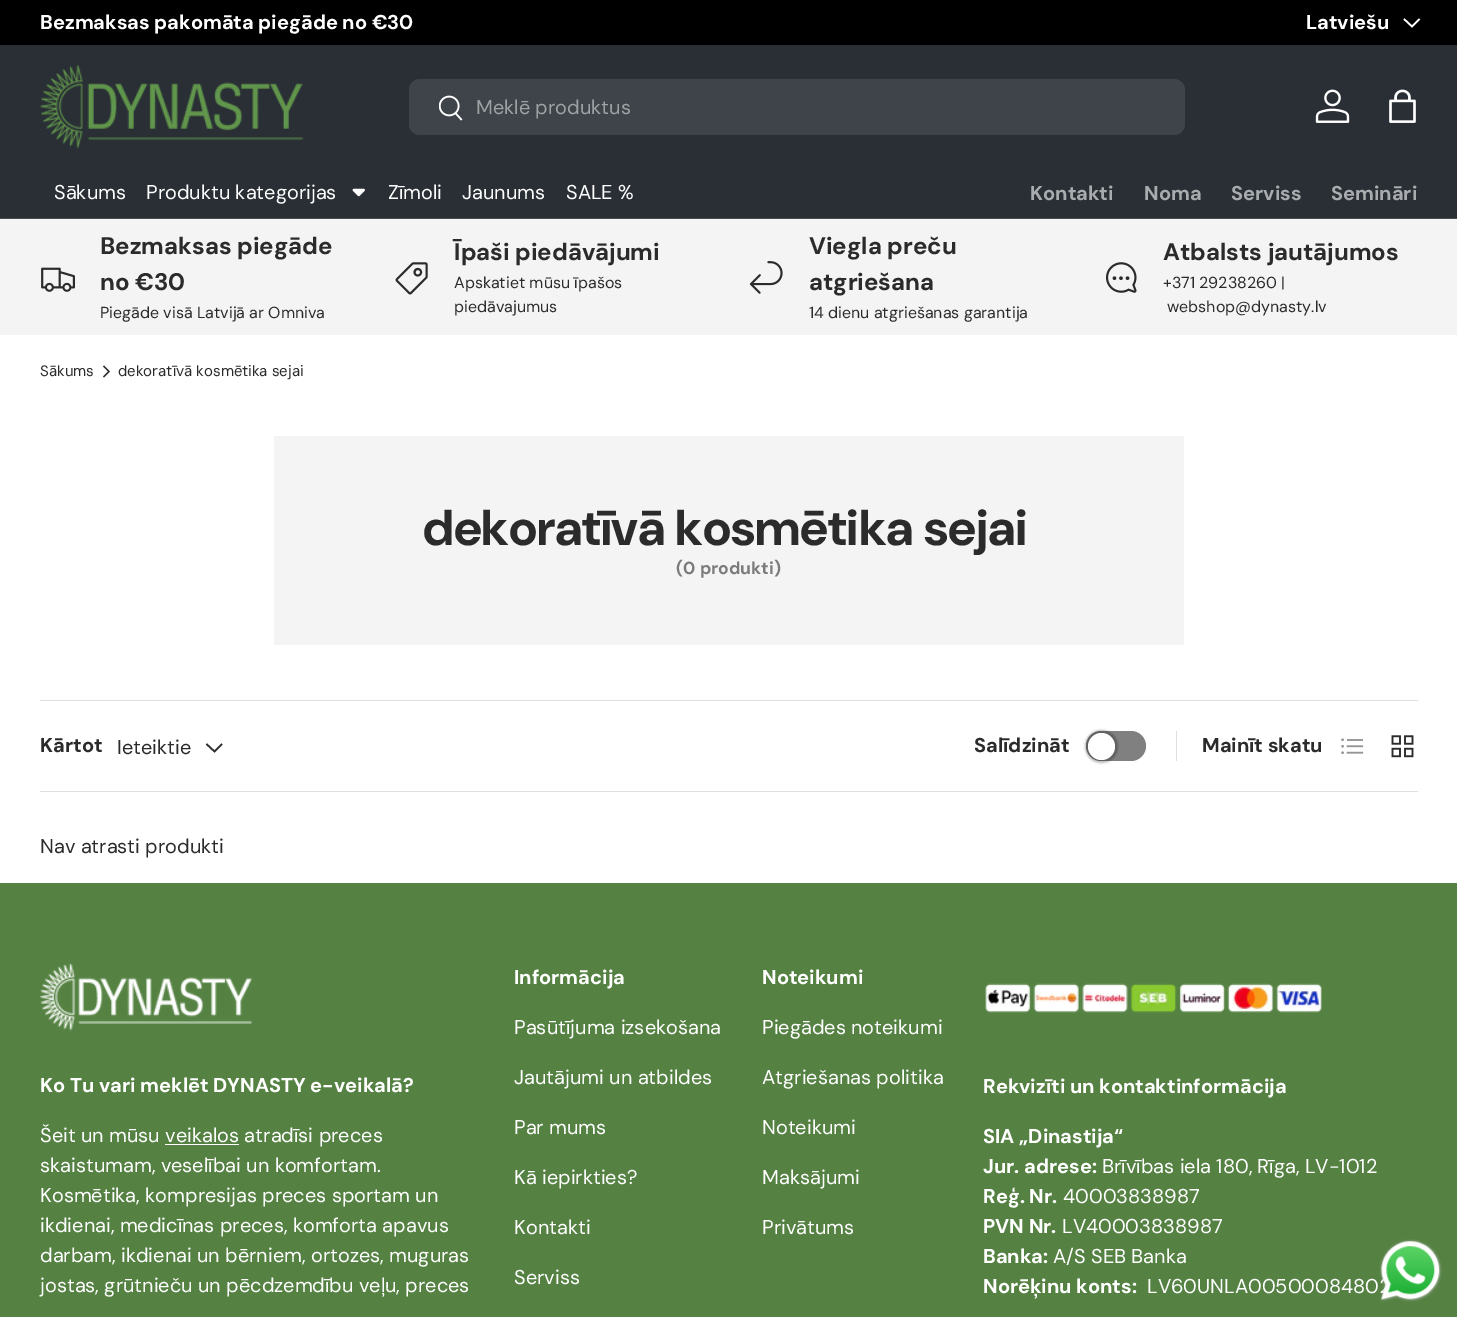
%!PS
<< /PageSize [1457 1317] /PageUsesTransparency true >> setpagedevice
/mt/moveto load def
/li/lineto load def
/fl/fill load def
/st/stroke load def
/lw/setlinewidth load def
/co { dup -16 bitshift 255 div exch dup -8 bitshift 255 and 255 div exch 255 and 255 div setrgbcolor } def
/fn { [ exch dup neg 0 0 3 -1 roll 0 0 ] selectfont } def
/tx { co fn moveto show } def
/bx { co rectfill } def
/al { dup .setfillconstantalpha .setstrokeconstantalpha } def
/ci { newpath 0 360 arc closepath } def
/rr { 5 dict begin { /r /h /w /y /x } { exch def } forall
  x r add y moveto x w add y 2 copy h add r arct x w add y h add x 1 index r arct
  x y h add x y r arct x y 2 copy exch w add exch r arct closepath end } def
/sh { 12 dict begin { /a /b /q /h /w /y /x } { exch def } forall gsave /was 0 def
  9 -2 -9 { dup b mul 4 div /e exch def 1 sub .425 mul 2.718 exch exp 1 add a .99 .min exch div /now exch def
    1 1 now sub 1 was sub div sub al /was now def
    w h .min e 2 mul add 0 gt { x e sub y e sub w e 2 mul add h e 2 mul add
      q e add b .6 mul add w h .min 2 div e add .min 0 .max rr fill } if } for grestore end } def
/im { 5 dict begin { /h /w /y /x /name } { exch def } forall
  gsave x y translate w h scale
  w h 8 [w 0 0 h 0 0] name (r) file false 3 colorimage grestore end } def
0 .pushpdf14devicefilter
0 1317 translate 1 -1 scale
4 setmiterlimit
0 0 1457 1317 16#FFFFFF bx
0 0 1457 45 16#000000 bx
16#FFFFFF co
1.6 lw
1419.5 19 mt 1412 26.5 li 1404 19 li st
0 45 1457 173 16#292F35 bx
0 218 1457 1 16#494E53 bx
(media/1.raw) 40 65 263 83 im
16#3E4449 co
409 79 776 56 11 rr fl
(media/2.raw) 439 95 24 26 im
(media/3.raw) 1315 89 35 34 im
(media/4.raw) 1389 89 27 34 im
(media/5.raw) 352 188 13 9 im
0 219 1457 116 16#F4F4F4 bx
(media/6.raw) 41 267 34 25 im
(media/7.raw) 395 262 33 33 im
(media/8.raw) 749 261 34 33 im
(media/9.raw) 1106 262 31 31 im
16#2A2B2A co
1.1 lw
103.5 366 mt 109 371.5 li 103.5 377 li st
274 436 910 209 16#F4F4F4 bx
40 700 1378 1 16#DFDFDF bx
40 791 1378 1 16#DFDFDF bx
16#2A2B2A co
1.6 lw
222 744 mt 214.5 751.5 li 206.5 744 li st
16#7F807F co
1086 731 60 30 15 rr fl
16#000000 co
1085 730 33 33 16.5 1 .25 sh
16#FFFFFF co
1101.5 746.5 13.5 ci fl
1176 731 1 30 16#DFDFDF bx
(media/10.raw) 1341 738 23 17 im
(media/11.raw) 1391 735 23 23 im
0 883 1457 434 16#558243 bx
(media/12.raw) 40 963 213 68 im
165 1144 74 1 16#FFFFFF bx
(media/13.raw) 985 983 337 30 im
(media/14.raw) 1379 1239 63 63 im
(Bezmaksas pakomāta piegāde no €30) 40 29 /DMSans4-Bold 20 16#FFFFFF tx
(Latviešu) 1306 29 /DMSans4-Bold 20 16#FFFFFF tx
(Meklē produktus) 476 114 /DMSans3-Regular 20 16#9FA2A4 tx
(Sākums) 54 199 /DMSans3-Regular 20 16#FFFFFF tx
(Produktu kategorijas) 146 199 /DMSans3-Regular 20 16#FFFFFF tx
(Zīmoli) 388 199 /DMSans3-Regular 20 16#FFFFFF tx
(Jaunums) 462 199 /DMSans3-Regular 20 16#FFFFFF tx
(SALE %) 566 199 /DMSans3-Regular 20 16#FFFFFF tx
(Kontakti) 1030 200 /DMSans4-Bold 20 16#A9ACAE tx
(Noma) 1144 200 /DMSans4-Bold 20 16#A9ACAE tx
(Serviss) 1231 200 /DMSans4-Bold 20 16#A9ACAE tx
(Semināri) 1331 200 /DMSans4-Bold 20 16#A9ACAE tx
(Bezmaksas piegāde) 100 254 /DMSans3-Bold 24 16#2A2B2A tx
(no €30) 100 290 /DMSans3-Bold 24 16#2A2B2A tx
(Piegāde visā Latvijā ar Omniva) 100 318 /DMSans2-Regular 16 16#2A2B2A tx
(Īpaši piedāvājumi) 454 260 /DMSans3-Bold 24 16#2A2B2A tx
(Apskatiet mūsu īpašos) 454 288 /DMSans2-Regular 16 16#2A2B2A tx
(piedāvajumus) 454 312 /DMSans2-Regular 16 16#2A2B2A tx
(Viegla preču) 809 254 /DMSans3-Bold 24 16#2A2B2A tx
(atgriešana) 809 290 /DMSans3-Bold 24 16#2A2B2A tx
(14 dienu atgriešanas garantija) 809 318 /DMSans2-Regular 16 16#2A2B2A tx
(Atbalsts jautājumos) 1163 260 /DMSans3-Bold 24 16#2A2B2A tx
(+371 29238260 |) 1163 288 /DMSans2-Regular 16 16#2A2B2A tx
(webshop@dynasty.lv) 1167 312 /DMSans2-Regular 16 16#2A2B2A tx
(Sākums) 40 376 /DMSans-Regular 15 16#2A2B2A tx
(dekoratīvā kosmētika sejai) 118 376 /DMSans-Regular 15 16#2A2B2A tx
(dekoratīvā kosmētika sejai) 423 545 /DMSans-Bold 50.25 16#2A2B2A tx
(\(0 produkti\)) 676 574 /DMSans2-Bold 17.5 16#7B7B7B tx
(Kārtot) 40 752 /DMSans4-Bold 20 16#2A2B2A tx
(Ieteiktie) 117 754 /DMSans3-Regular 20 16#2A2B2A tx
(Salīdzināt) 974 752 /DMSans4-Bold 20 16#2A2B2A tx
(Mainīt skatu) 1202 752 /DMSans4-Bold 20 16#2A2B2A tx
(Nav atrasti produkti) 40 853 /DMSans3-Regular 20 16#2A2B2A tx
(Ko Tu vari meklēt DYNASTY e-veikalā?) 40 1092 /DMSans4-Bold 20 16#FFFFFF tx
(Šeit un mūsu veikalos atradīsi preces) 40 1142 /DMSans3-Regular 20 16#FFFFFF tx
(skaistumam, veselībai un komfortam.) 40 1172 /DMSans3-Regular 20 16#FFFFFF tx
(Kosmētika, kompresijas preces sportam un) 40 1202 /DMSans3-Regular 20 16#FFFFFF tx
(ikdienai, medicīnas preces, komforta apavus) 40 1232 /DMSans3-Regular 20 16#FFFFFF tx
(darbam, ikdienai un bērniem, ortozes, muguras) 40 1262 /DMSans3-Regular 20 16#FFFFFF tx
(jostas, grūtnieču un pēcdzemdību veļu, preces) 40 1292 /DMSans3-Regular 20 16#FFFFFF tx
(Informācija) 514 984 /DMSans4-Bold 20 16#FFFFFF tx
(Pasūtījuma izsekošana) 514 1034 /DMSans3-Regular 20 16#FFFFFF tx
(Jautājumi un atbildes) 514 1084 /DMSans3-Regular 20 16#FFFFFF tx
(Par mums) 514 1134 /DMSans3-Regular 20 16#FFFFFF tx
(Kā iepirkties?) 514 1184 /DMSans3-Regular 20 16#FFFFFF tx
(Kontakti) 514 1234 /DMSans3-Regular 20 16#FFFFFF tx
(Serviss) 514 1284 /DMSans3-Regular 20 16#FFFFFF tx
(Noteikumi) 762 984 /DMSans4-Bold 20 16#FFFFFF tx
(Piegādes noteikumi) 762 1034 /DMSans3-Regular 20 16#FFFFFF tx
(Atgriešanas politika) 762 1084 /DMSans3-Regular 20 16#FFFFFF tx
(Noteikumi) 762 1134 /DMSans3-Regular 20 16#FFFFFF tx
(Maksājumi) 762 1184 /DMSans3-Regular 20 16#FFFFFF tx
(Privātums) 762 1234 /DMSans3-Regular 20 16#FFFFFF tx
(Rekvizīti un kontaktinformācija) 983 1093 /DMSans4-Bold 20 16#FFFFFF tx
(SIA „Dinastija“) 983 1143 /DMSans4-Bold 20 16#FFFFFF tx
(Jur. adrese:) 983 1173 /DMSans4-Bold 20 16#FFFFFF tx
(Brīvības iela 180, Rīga, LV-1012) 1102 1173 /DMSans3-Regular 20 16#FFFFFF tx
(Reģ. Nr.) 983 1203 /DMSans4-Bold 20 16#FFFFFF tx
(40003838987) 1063 1203 /DMSans3-Regular 20 16#FFFFFF tx
(PVN Nr.) 983 1233 /DMSans4-Bold 20 16#FFFFFF tx
(LV40003838987) 1062 1233 /DMSans3-Regular 20 16#FFFFFF tx
(Banka:) 983 1263 /DMSans4-Bold 20 16#FFFFFF tx
(A/S SEB Banka) 1053 1263 /DMSans3-Regular 20 16#FFFFFF tx
(Norēķinu konts:) 983 1293 /DMSans4-Bold 20 16#FFFFFF tx
(LV60UNLA0050008480) 1147 1293 /DMSans3-Regular 20 16#FFFFFF tx
.poppdf14devicefilter showpage
